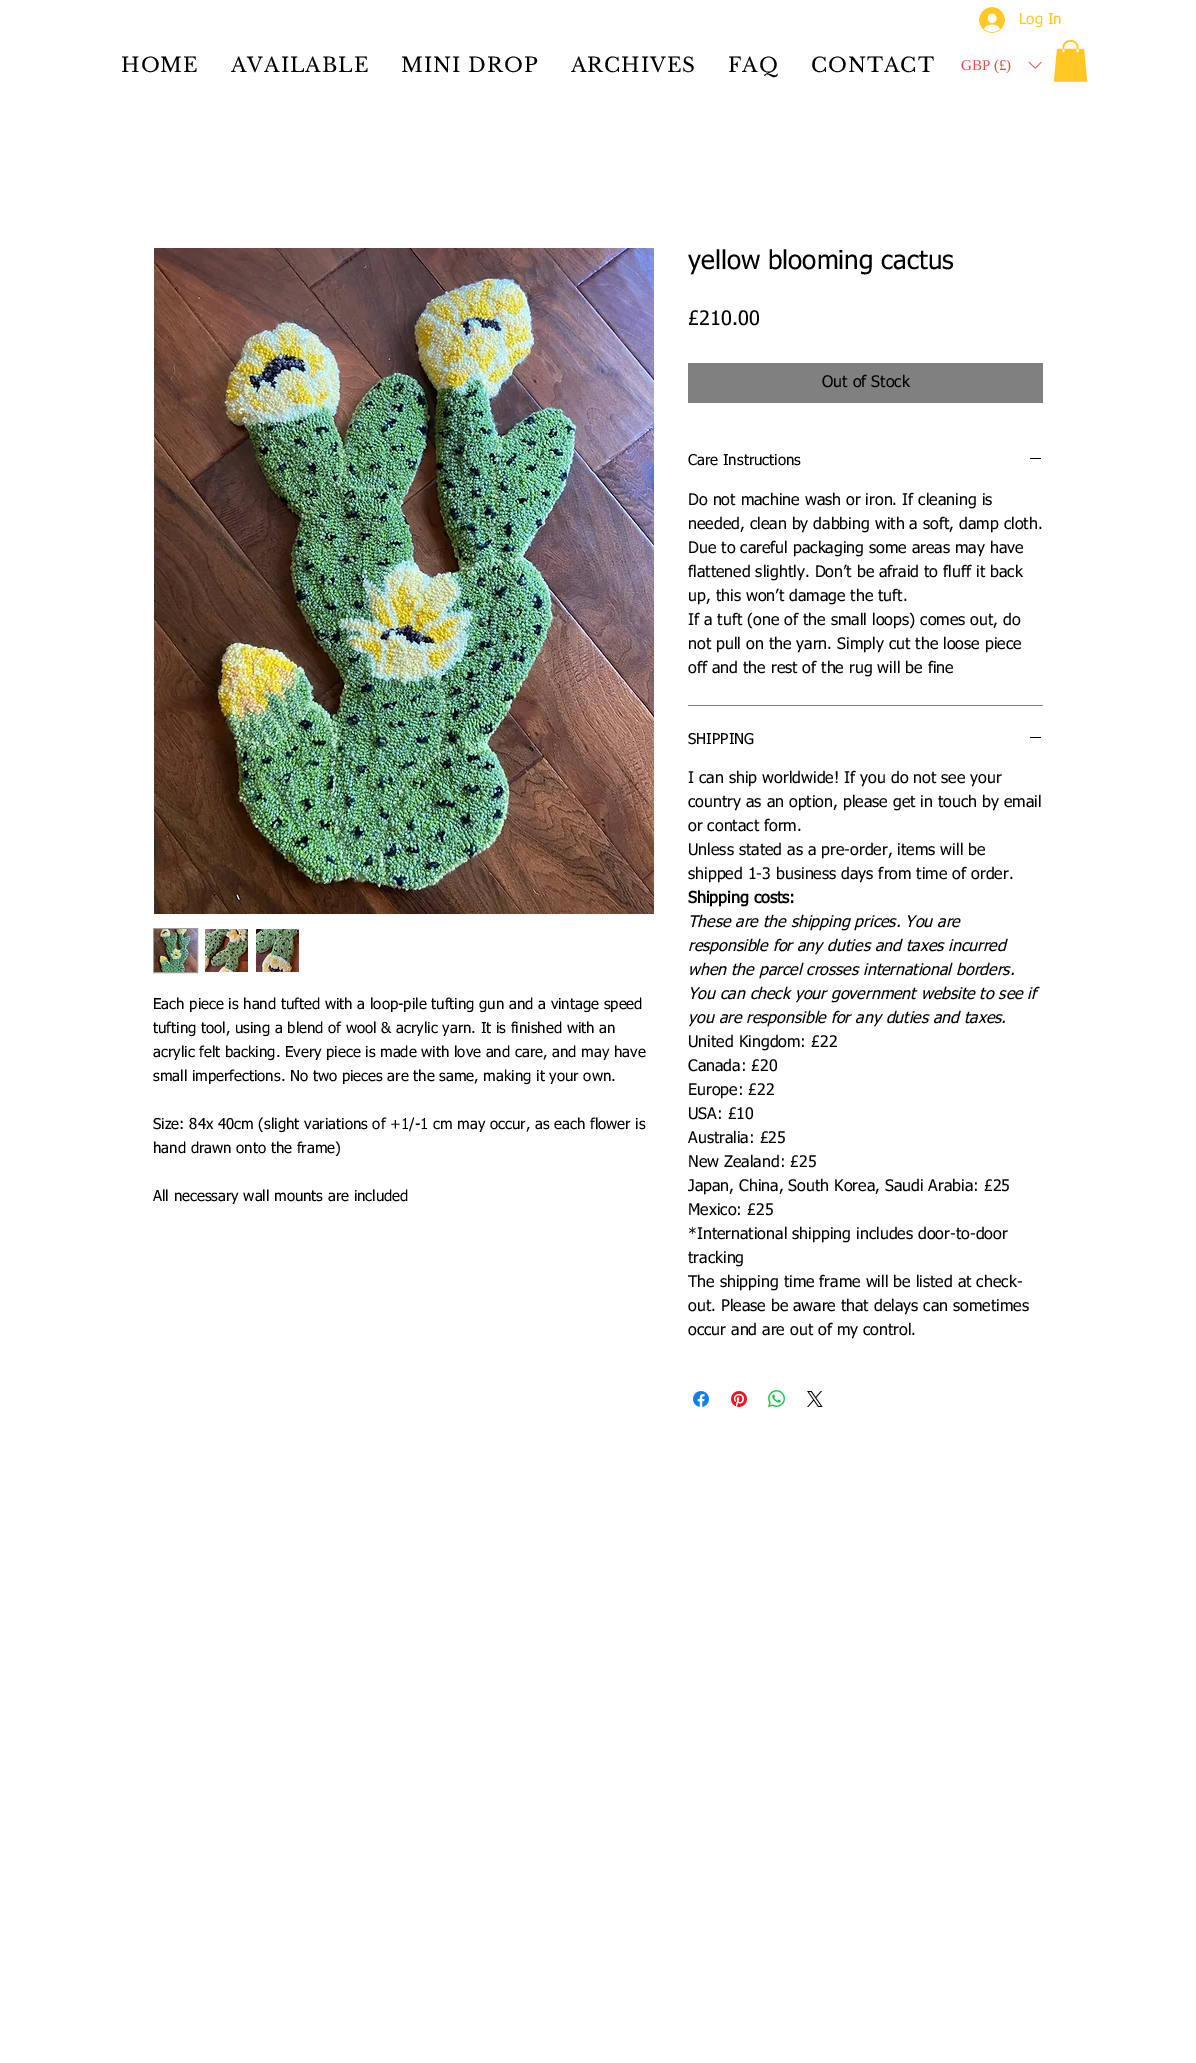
%!PS
<< /PageSize [1196 2063] >> setpagedevice
/mt/moveto load def
/co { dup -16 bitshift 255 div exch dup -8 bitshift 255 and 255 div exch 255 and 255 div setrgbcolor } def
/fn { [ exch dup neg 0 0 3 -1 roll 0 0 ] selectfont } def
/tx { co fn moveto show } def
/bx { co rectfill } def
/im { 5 dict begin { /h /w /y /x /name } { exch def } forall
  gsave x y translate w h scale
  w h 8 [w 0 0 h 0 0] name (r) file false 3 colorimage grestore end } def
0 2063 translate 1 -1 scale
4 setmiterlimit
0 0 1196 2063 16#FFFFFF bx
(media/1.raw) 979 7 26 26 im
(media/2.raw) 1028 61 14 8 im
(media/3.raw) 1054 40 34 42 im
(media/4.raw) 154 248 500 666 im
16#9E9E9E co
153.5 928.5 44 44 rectstroke
(media/5.raw) 154 929 43 43 im
(media/6.raw) 205 929 43 43 im
(media/7.raw) 256 929 43 43 im
688 363 355 40 16#808080 bx
688 705 355 1 16#808080 bx
1030 458 11 1 16#000000 bx
1030 737 11 1 16#000000 bx
(media/8.raw) 693 1391 16 16 im
(media/9.raw) 731 1391 16 16 im
(media/10.raw) 768 1390 17 17 im
(media/11.raw) 807 1391 16 16 im
(Log In) 1019 24 /tahoma-Regular 15 16#FFC824 tx
/LibreBaskerville-Regular 20 fn
16#000000 co
121 72 mt 1 0 (HOME) ashow
231 72 mt 1 0 (AVAILABLE) ashow
401 72 mt 1 0 (MINI DROP) ashow
571 72 mt 1 0 (ARCHIVES) ashow
728 72 mt 1 0 (FAQ) ashow
811 72 mt 1 0 (CONTACT) ashow
(GBP \(£\)) 961 70 /LiberationSerif-Regular 15 16#EB4949 tx
(Each piece is hand tufted with a loop-pile tufting gun and a vintage speed) 153 1009 /tahoma-Regular 15 16#000000 tx
(tufting tool, using a blend of wool & acrylic yarn. It is finished with an) 153 1033 /tahoma-Regular 15 16#000000 tx
(acrylic felt backing. Every piece is made with love and care, and may have) 153 1057 /tahoma-Regular 15 16#000000 tx
(small imperfections. No two pieces are the same, making it your own.) 153 1081 /tahoma-Regular 15 16#000000 tx
(Size: 84x 40cm \(slight variations of +1/-1 cm may occur, as each flower is) 153 1129 /tahoma-Regular 15 16#000000 tx
(hand drawn onto the frame\)) 153 1153 /tahoma-Regular 15 16#000000 tx
(All necessary wall mounts are included) 153 1201 /tahoma-Regular 15 16#000000 tx
(yellow blooming cactus) 688 269 /tahoma-Regular 26 16#000000 tx
(£210.00) 688 325 /tahoma-Regular 20 16#000000 tx
(Out of Stock) 822 387 /tahoma-Regular 16 16#000000 tx
(Care Instructions) 688 465 /tahoma-Regular 15 16#000000 tx
(Do not machine wash or iron. If cleaning is) 688 505 /tahoma-Regular 16 16#000000 tx
(needed, clean by dabbing with a soft, damp cloth.) 688 529 /tahoma-Regular 16 16#000000 tx
(Due to careful packaging some areas may have) 688 553 /tahoma-Regular 16 16#000000 tx
(flattened slightly. Don’t be afraid to fluff it back) 688 577 /tahoma-Regular 16 16#000000 tx
(up, this won’t damage the tuft.) 688 601 /tahoma-Regular 16 16#000000 tx
(If a tuft \(one of the small loops\) comes out, do) 688 625 /tahoma-Regular 16 16#000000 tx
(not pull on the yarn. Simply cut the loose piece) 688 649 /tahoma-Regular 16 16#000000 tx
(off and the rest of the rug will be fine) 688 673 /tahoma-Regular 16 16#000000 tx
(SHIPPING) 688 744 /tahoma-Regular 15 16#000000 tx
(I can ship worldwide! If you do not see your) 688 783 /tahoma-Regular 16 16#000000 tx
(country as an option, please get in touch by email) 688 807 /tahoma-Regular 16 16#000000 tx
(or contact form.) 688 831 /tahoma-Regular 16 16#000000 tx
(Unless stated as a pre-order, items will be) 688 855 /tahoma-Regular 16 16#000000 tx
(shipped 1-3 business days from time of order.) 688 879 /tahoma-Regular 16 16#000000 tx
(Shipping costs:) 688 903 /tahoma-Bold 16 16#000000 tx
(These are the shipping prices. You are) 688 927 /tahoma-Italic 16 16#000000 tx
(responsible for any duties and taxes incurred) 688 951 /tahoma-Italic 16 16#000000 tx
(when the parcel crosses international borders.) 688 975 /tahoma-Italic 16 16#000000 tx
(You can check your government website to see if) 688 999 /tahoma-Italic 16 16#000000 tx
(you are responsible for any duties and taxes.) 688 1023 /tahoma-Italic 16 16#000000 tx
(United Kingdom: £22) 688 1047 /tahoma-Regular 16 16#000000 tx
(Canada: £20) 688 1071 /tahoma-Regular 16 16#000000 tx
(Europe: £22) 688 1095 /tahoma-Regular 16 16#000000 tx
(USA: £10) 688 1119 /tahoma-Regular 16 16#000000 tx
(Australia: £25) 688 1143 /tahoma-Regular 16 16#000000 tx
(New Zealand: £25) 688 1167 /tahoma-Regular 16 16#000000 tx
(Japan, China, South Korea, Saudi Arabia: £25) 688 1191 /tahoma-Regular 16 16#000000 tx
(Mexico: £25) 688 1215 /tahoma-Regular 16 16#000000 tx
(*International shipping includes door-to-door) 688 1239 /tahoma-Regular 16 16#000000 tx
(tracking) 688 1263 /tahoma-Regular 16 16#000000 tx
(The shipping time frame will be listed at check-) 688 1287 /tahoma-Regular 16 16#000000 tx
(out. Please be aware that delays can sometimes) 688 1311 /tahoma-Regular 16 16#000000 tx
(occur and are out of my control.) 688 1335 /tahoma-Regular 16 16#000000 tx
showpage
